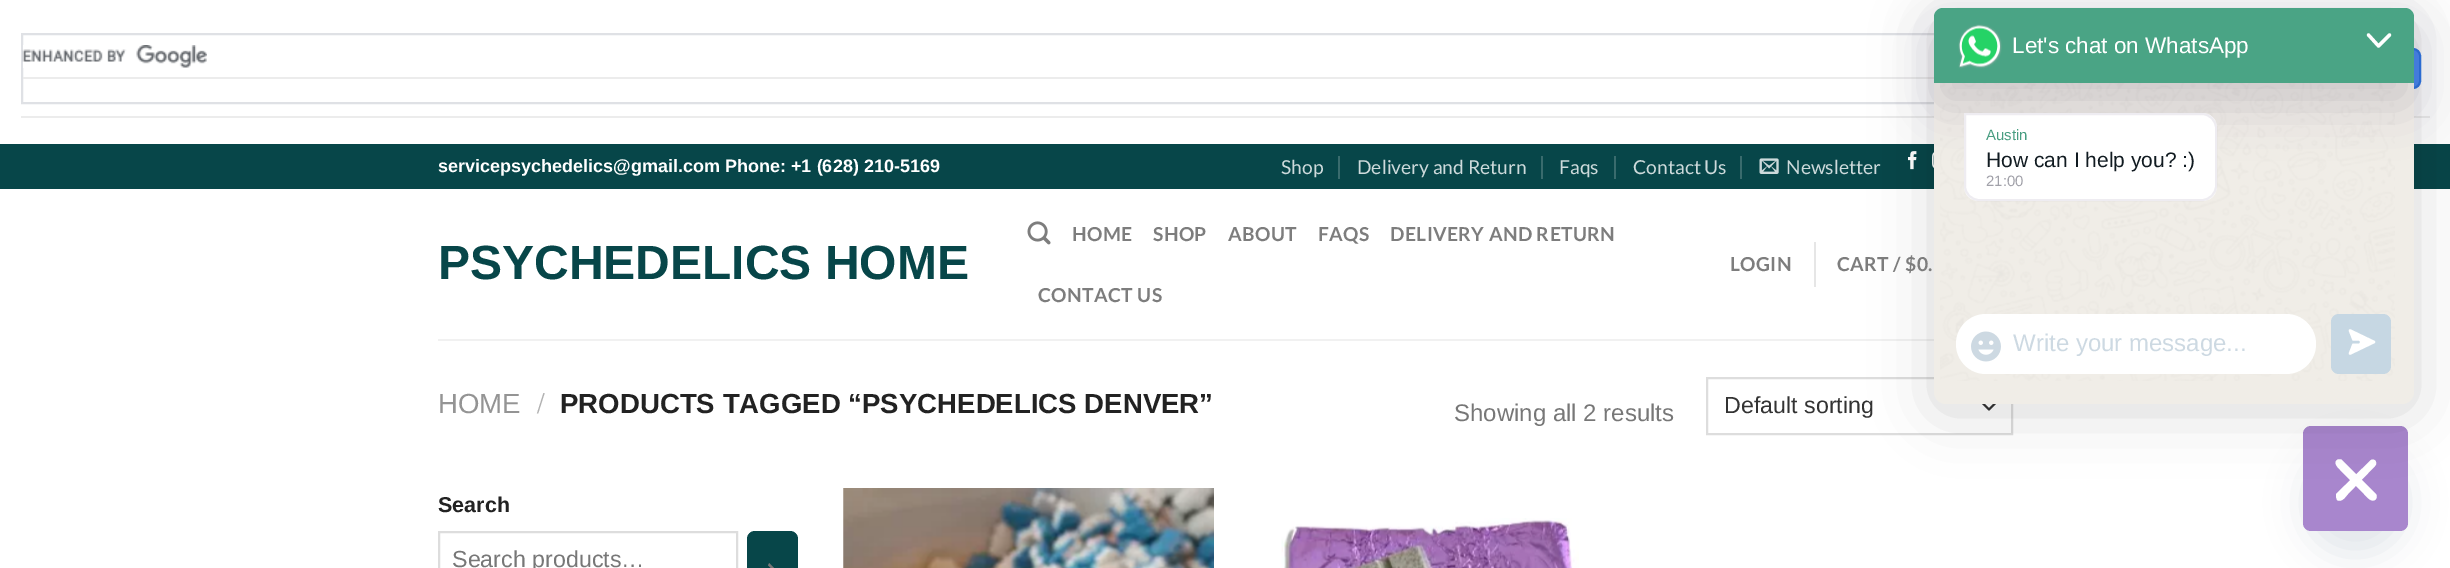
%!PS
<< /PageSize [2450 568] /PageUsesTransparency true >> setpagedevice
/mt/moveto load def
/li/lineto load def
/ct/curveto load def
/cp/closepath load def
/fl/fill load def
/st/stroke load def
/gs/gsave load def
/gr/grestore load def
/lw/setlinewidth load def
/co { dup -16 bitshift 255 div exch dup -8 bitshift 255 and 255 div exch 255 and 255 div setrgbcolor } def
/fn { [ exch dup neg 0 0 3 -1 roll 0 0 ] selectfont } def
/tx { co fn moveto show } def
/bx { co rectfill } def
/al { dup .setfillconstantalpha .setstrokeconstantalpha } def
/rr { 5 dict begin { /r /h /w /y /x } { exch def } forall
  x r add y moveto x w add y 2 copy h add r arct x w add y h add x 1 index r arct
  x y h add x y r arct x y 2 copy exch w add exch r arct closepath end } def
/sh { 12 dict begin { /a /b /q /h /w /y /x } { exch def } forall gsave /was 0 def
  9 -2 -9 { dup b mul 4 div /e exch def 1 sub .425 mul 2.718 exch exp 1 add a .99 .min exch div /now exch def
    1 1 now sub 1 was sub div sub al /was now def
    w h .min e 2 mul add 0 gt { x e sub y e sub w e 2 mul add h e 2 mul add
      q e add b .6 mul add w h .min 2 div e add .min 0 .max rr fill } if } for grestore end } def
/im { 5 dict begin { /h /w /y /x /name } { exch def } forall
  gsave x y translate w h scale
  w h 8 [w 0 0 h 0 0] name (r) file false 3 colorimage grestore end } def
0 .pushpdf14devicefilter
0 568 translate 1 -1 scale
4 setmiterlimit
0 0 2450 568 16#FFFFFF bx
21 116 1913 2 16#ECECEC bx
16#DFE1E5 co
2 lw
22 34 2265 69 rectstroke
23 77 1911 2 16#ECECEC bx
(media/1.raw) 22 45 185 23 im
2414 116 16 2 16#ECECEC bx
16#4D90FE co
2319 49 101 39 7 rr gs fl gr
16#3079ED co
st
0 144 2450 45 16#074649 bx
1338 156 2 23 16#396B6D bx
1541 156 2 23 16#396B6D bx
1614 156 2 23 16#396B6D bx
1740 156 2 23 16#396B6D bx
(media/2.raw) 1759 158 20 16 im
(media/3.raw) 1908 151 9 19 im
(media/4.raw) 1932 152 2 16 im
(media/5.raw) 1027 221 24 24 im
1814 242 2 45 16#E6E6E6 bx
438 339 1496 2 16#F1F1F1 bx
16#333333 co
1 setlinecap
1 setlinejoin
1983 403.5 mt 1989 409.5 li 1995 403.5 li st
16#DDDDDD co
0 setlinecap
0 setlinejoin
1707 378 305 56 rectstroke
439 532 298 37 rectstroke
16#074649 co
747 531 51 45 8 rr fl
(media/6.raw) 768 563 6 5 im
(media/7.raw) 843 488 371 80 im
(media/8.raw) 1281 518 298 50 im
16#49687E co
2303 450 105 105 52.5 18 .16 sh
16#A886CD co
2303 426 105 105 8 rr fl
16#FFFFFF co
2342 460 mt 2376 494 li 2377 496 2377 497 2376 499 ct 2372 504 2366 496 2364 494 ct 2342 472 li 2341 470 2332 464 2337 460 ct 2338 459 2341 459 2342 460 ct cp fl
2375 466 mt 2348 494 li 2346 496 2342 503 2337 500 ct 2336 497 li 2336 494 li 2371 460 li 2375 458 2378 463 2375 466 ct cp fl
16#000000 co
1934 15 480 396 9 30 .16 sh
16#F0EDE7 co
1934 8 480 396 12 rr fl
(media/10.raw) 1940 83 455 298 im
16#1A0E35 co
1934 32 480 75 9 24 .16 sh
16#4AA485 co
1943 8 mt 2405 8 li 2410 8 2414 12 2414 17 ct 2414 83 li 1934 83 li 1934 17 li 1934 12 1938 8 1943 8 ct cp fl
(media/9.raw) 1958 24 44 45 im
16#FFFFFF co
3.2 lw
1 setlinecap
1 setlinejoin
2368.5 35 mt 2378.5 46 li 2389.5 35 li st
1964 113 mt 2202 113 li 2210.5 113 2217 119.5 2217 128 ct 2217 186 li 2217 194.5 2210.5 201 2202 201 ct 1979 201 li 1970.5 201 1964 194.5 1964 186 ct cp fl
0.08 al
16#221147 co
2 lw
0 setlinecap
0 setlinejoin
1965 114 mt 2202 114 li 2209.5 114 2216 120.5 2216 128 ct 2216 186 li 2216 193.5 2209.5 200 2202 200 ct 1979 200 li 1971.5 200 1965 193.5 1965 186 ct cp st
1 al
16#FFFFFF co
1956 314 360 60 30 rr fl
(media/11.raw) 1971 331 30 31 im
16#C6D7E3 co
2331 314 60 60 8 rr fl
16#FFFFFF co
2374 342 mt 2350 353.5 li 2354.5 342 li 2350 330.5 li cp gs fl gr
2.5 lw
1 setlinecap
1 setlinejoin
st
16#C6D7E3 co
2358.5 342 mt 2350.5 342 li st
(servicepsychedelics@gmail.com) 438 172 /LiberationSans-Bold 18 16#FFFFFF tx
(Phone: +1 \(628\) 210-5169) 725 172 /LiberationSans-Bold 18 16#FFFFFF tx
(Shop) 1281 174 /Lato-Regular 19.25 16#CDDADB tx
(Delivery and Return) 1357 174 /Lato-Regular 19.25 16#CDDADB tx
(Faqs) 1559 174 /Lato-Regular 19.25 16#CDDADB tx
(Contact Us) 1633 174 /Lato-Regular 19.25 16#CDDADB tx
(Newsletter) 1786 174 /Lato-Regular 19.25 16#CDDADB tx
(PSYCHEDELICS HOME) 438 279 /LiberationSans-Bold 48 16#074649 tx
/Lato-Bold 19.25 fn
16#7D7D7D co
1072 241 mt .4 0 (HOME) ashow
1153 241 mt .4 0 (SHOP) ashow
1228 241 mt .4 0 (ABOUT) ashow
1318 241 mt .4 0 (FAQS) ashow
1390 241 mt .4 0 (DELIVERY AND RETURN) ashow
1038 302 mt .4 0 (CONTACT US) ashow
1730 271 mt .4 0 (LOGIN) ashow
1837 271 mt .4 0 (CART / $0.) ashow
(HOME) 438 413 /LiberationSans-Regular 27.6 16#949494 tx
(/) 537 413 /Content-Regular 27.6 16#B2B2B2 tx
(PRODUCTS TAGGED “PSYCHEDELICS DENVER”) 560 413 /LiberationSans-Bold 27.6 16#222222 tx
(Showing all 2 results) 1454 421 /LiberationSans-Regular 24 16#777777 tx
(Default sorting) 1724 413 /LiberationSans-Regular 23.25 16#333333 tx
(Search) 438 512 /LiberationSans-Bold 21.5 16#222222 tx
(Search products…) 452 567 /LiberationSans-Regular 23.25 16#777777 tx
(Let's chat on WhatsApp) 2012 53 /LiberationSans-Regular 22.5 16#FFFFFF tx
(Austin) 1986 140 /LiberationSans-Regular 15 16#489D81 tx
(How can I help you? :\)) 1986 167 /LiberationSans-Regular 21 16#111B21 tx
(21:00) 1986 186 /LiberationSans-Regular 15 16#A1A1A9 tx
(Write your message...) 2013 351 /LiberationSans-Regular 24 16#CDD9E2 tx
.poppdf14devicefilter showpage
